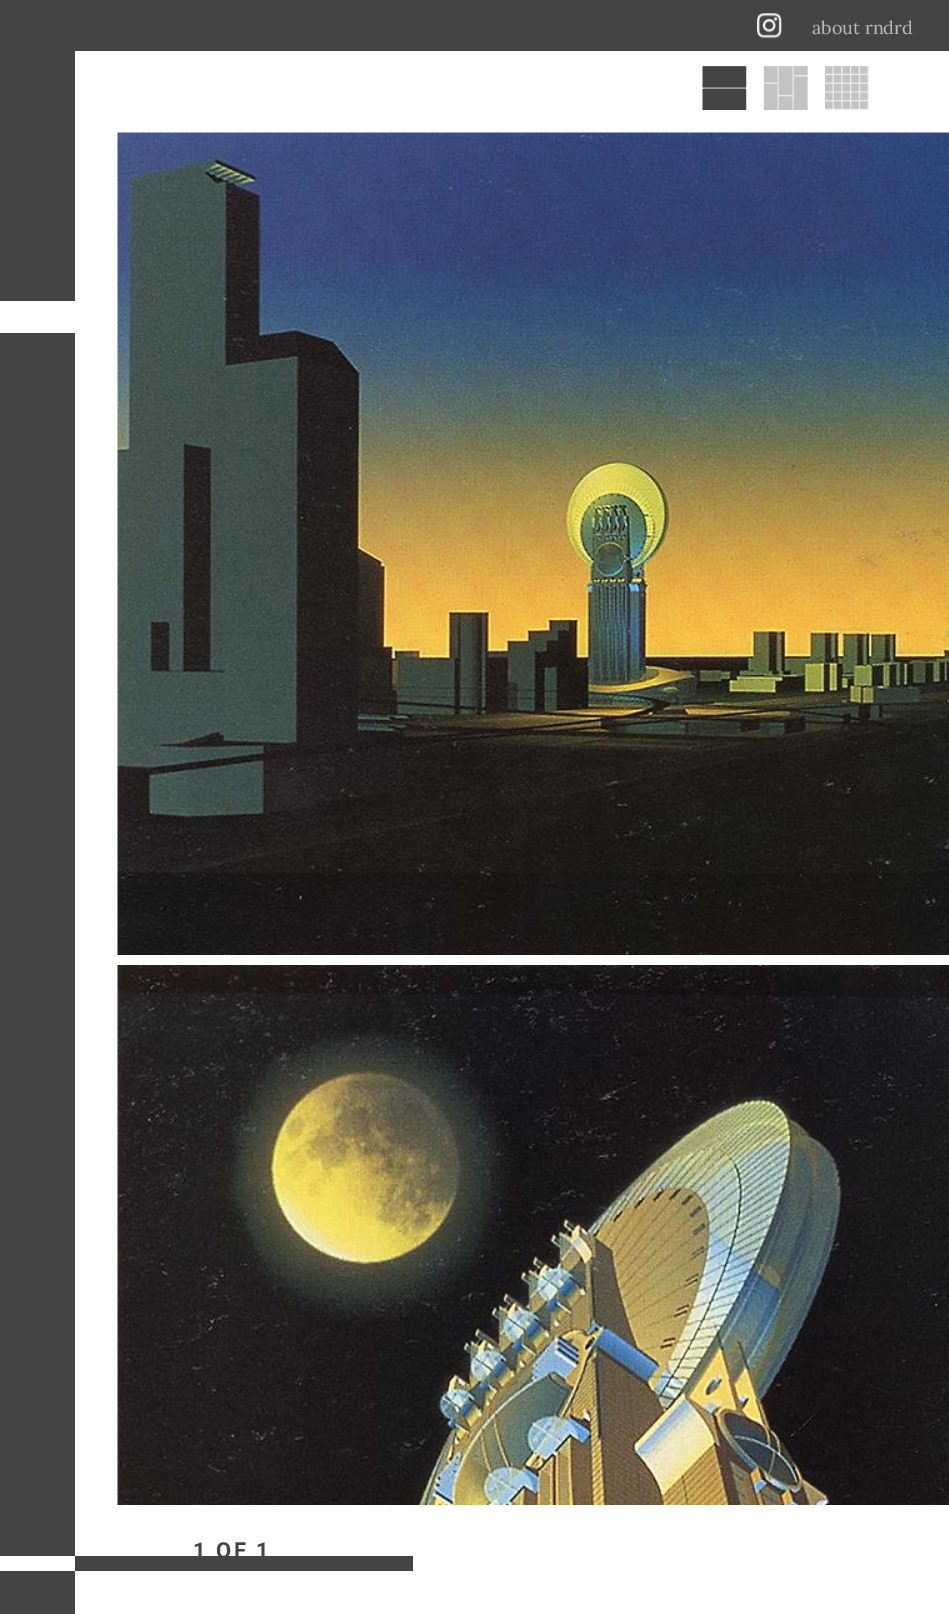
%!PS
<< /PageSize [949 1614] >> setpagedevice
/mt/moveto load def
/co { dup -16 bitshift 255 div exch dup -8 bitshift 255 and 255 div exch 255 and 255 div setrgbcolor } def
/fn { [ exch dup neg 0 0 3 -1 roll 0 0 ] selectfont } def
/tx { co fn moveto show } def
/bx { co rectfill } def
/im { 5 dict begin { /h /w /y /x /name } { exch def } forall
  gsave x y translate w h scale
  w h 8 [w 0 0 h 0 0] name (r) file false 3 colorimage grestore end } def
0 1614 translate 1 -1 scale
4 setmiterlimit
0 0 949 1614 16#444444 bx
(media/1.raw) 757 13 25 26 im
75 51 874 1563 16#FFFFFF bx
703 66 43 23 16#BBBBBB bx
(media/2.raw) 702 66 45 44 im
764 66 44 44 16#EEEEEE bx
(media/3.raw) 763 66 45 44 im
825 66 44 44 16#EEEEEE bx
(media/4.raw) 825 66 43 43 im
(media/5.raw) 117 132 832 823 im
(media/6.raw) 117 965 832 540 im
0 301 75 32 16#FFFFFF bx
0 1556 75 15 16#FFFFFF bx
75 1556 338 15 16#444444 bx
(about rndrd) 812 34 /Lora-Regular 18 16#BBBBBB tx
/Roboto-Bold 22 fn
16#444444 co
193 1558 mt 2.5 0 (1 OF 1) ashow
showpage
